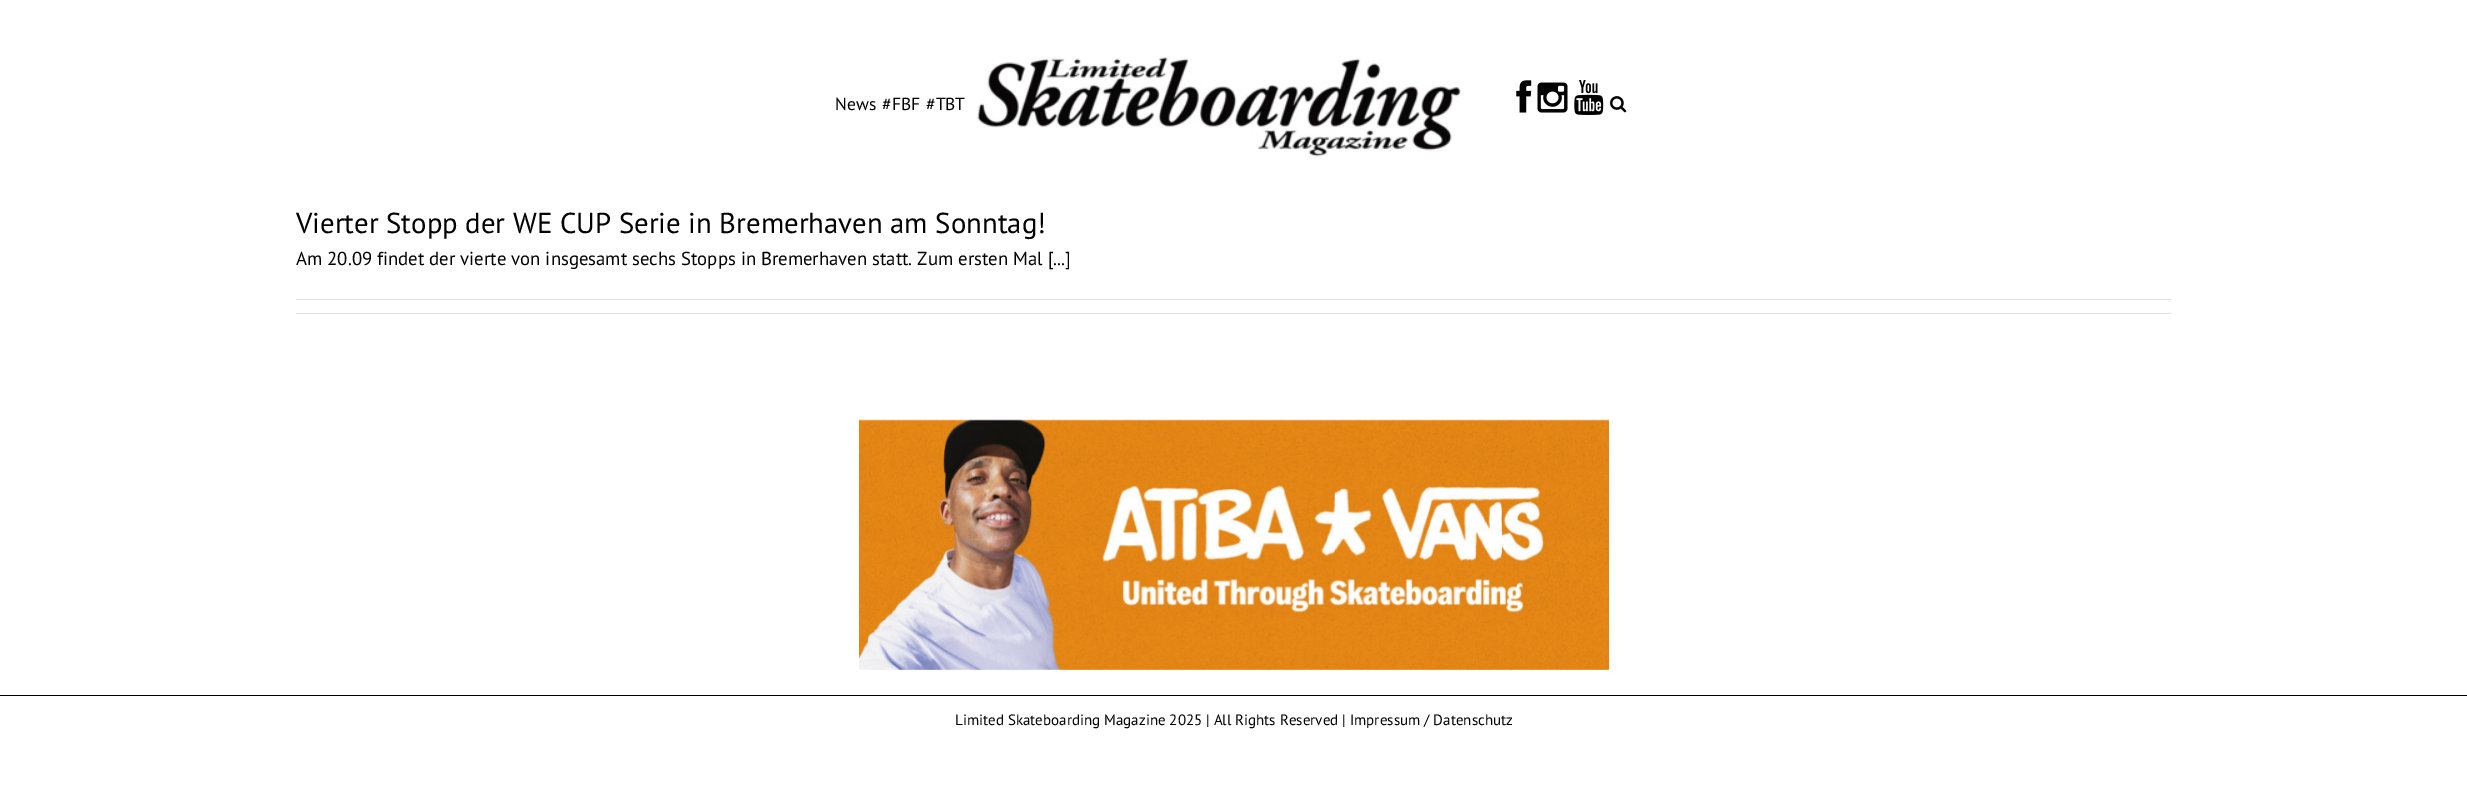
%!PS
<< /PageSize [2467 799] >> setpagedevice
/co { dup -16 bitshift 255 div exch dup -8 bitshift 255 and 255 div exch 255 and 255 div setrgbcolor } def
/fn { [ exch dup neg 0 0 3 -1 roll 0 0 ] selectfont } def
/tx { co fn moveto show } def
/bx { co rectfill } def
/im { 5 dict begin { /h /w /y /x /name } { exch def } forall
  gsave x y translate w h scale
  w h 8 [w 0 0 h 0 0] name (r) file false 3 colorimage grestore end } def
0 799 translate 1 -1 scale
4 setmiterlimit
0 0 2467 799 16#FFFFFF bx
(media/1.raw) 977 57 484 100 im
(media/2.raw) 1516 80 16 33 im
(media/3.raw) 1537 82 31 31 im
(media/4.raw) 1574 80 30 35 im
(media/5.raw) 1610 96 17 17 im
296 299 1875 1 16#E0DEDE bx
296 313 1875 1 16#E0DEDE bx
(media/6.raw) 859 419 750 251 im
0 695 2467 1 16#000000 bx
(News) 835 110 /PTSans-Regular 17.5 16#000000 tx
(#FBF) 882 110 /PTSans-Regular 17.5 16#000000 tx
(#TBT) 926 110 /PTSans-Regular 17.5 16#000000 tx
(Vierter Stopp der WE CUP Serie in Bremerhaven am Sonntag!) 296 233 /PTSans-Regular 28.75 16#000000 tx
(Am 20.09 findet der vierte von insgesamt sechs Stopps in Bremerhaven statt. Zum ersten Mal [...]) 296 265 /PTSans-Regular 18.75 16#000000 tx
(Limited Skateboarding Magazine 2025 | All Rights Reserved | Impressum / Datenschutz) 955 725 /PTSans-Regular 15 16#000000 tx
showpage
